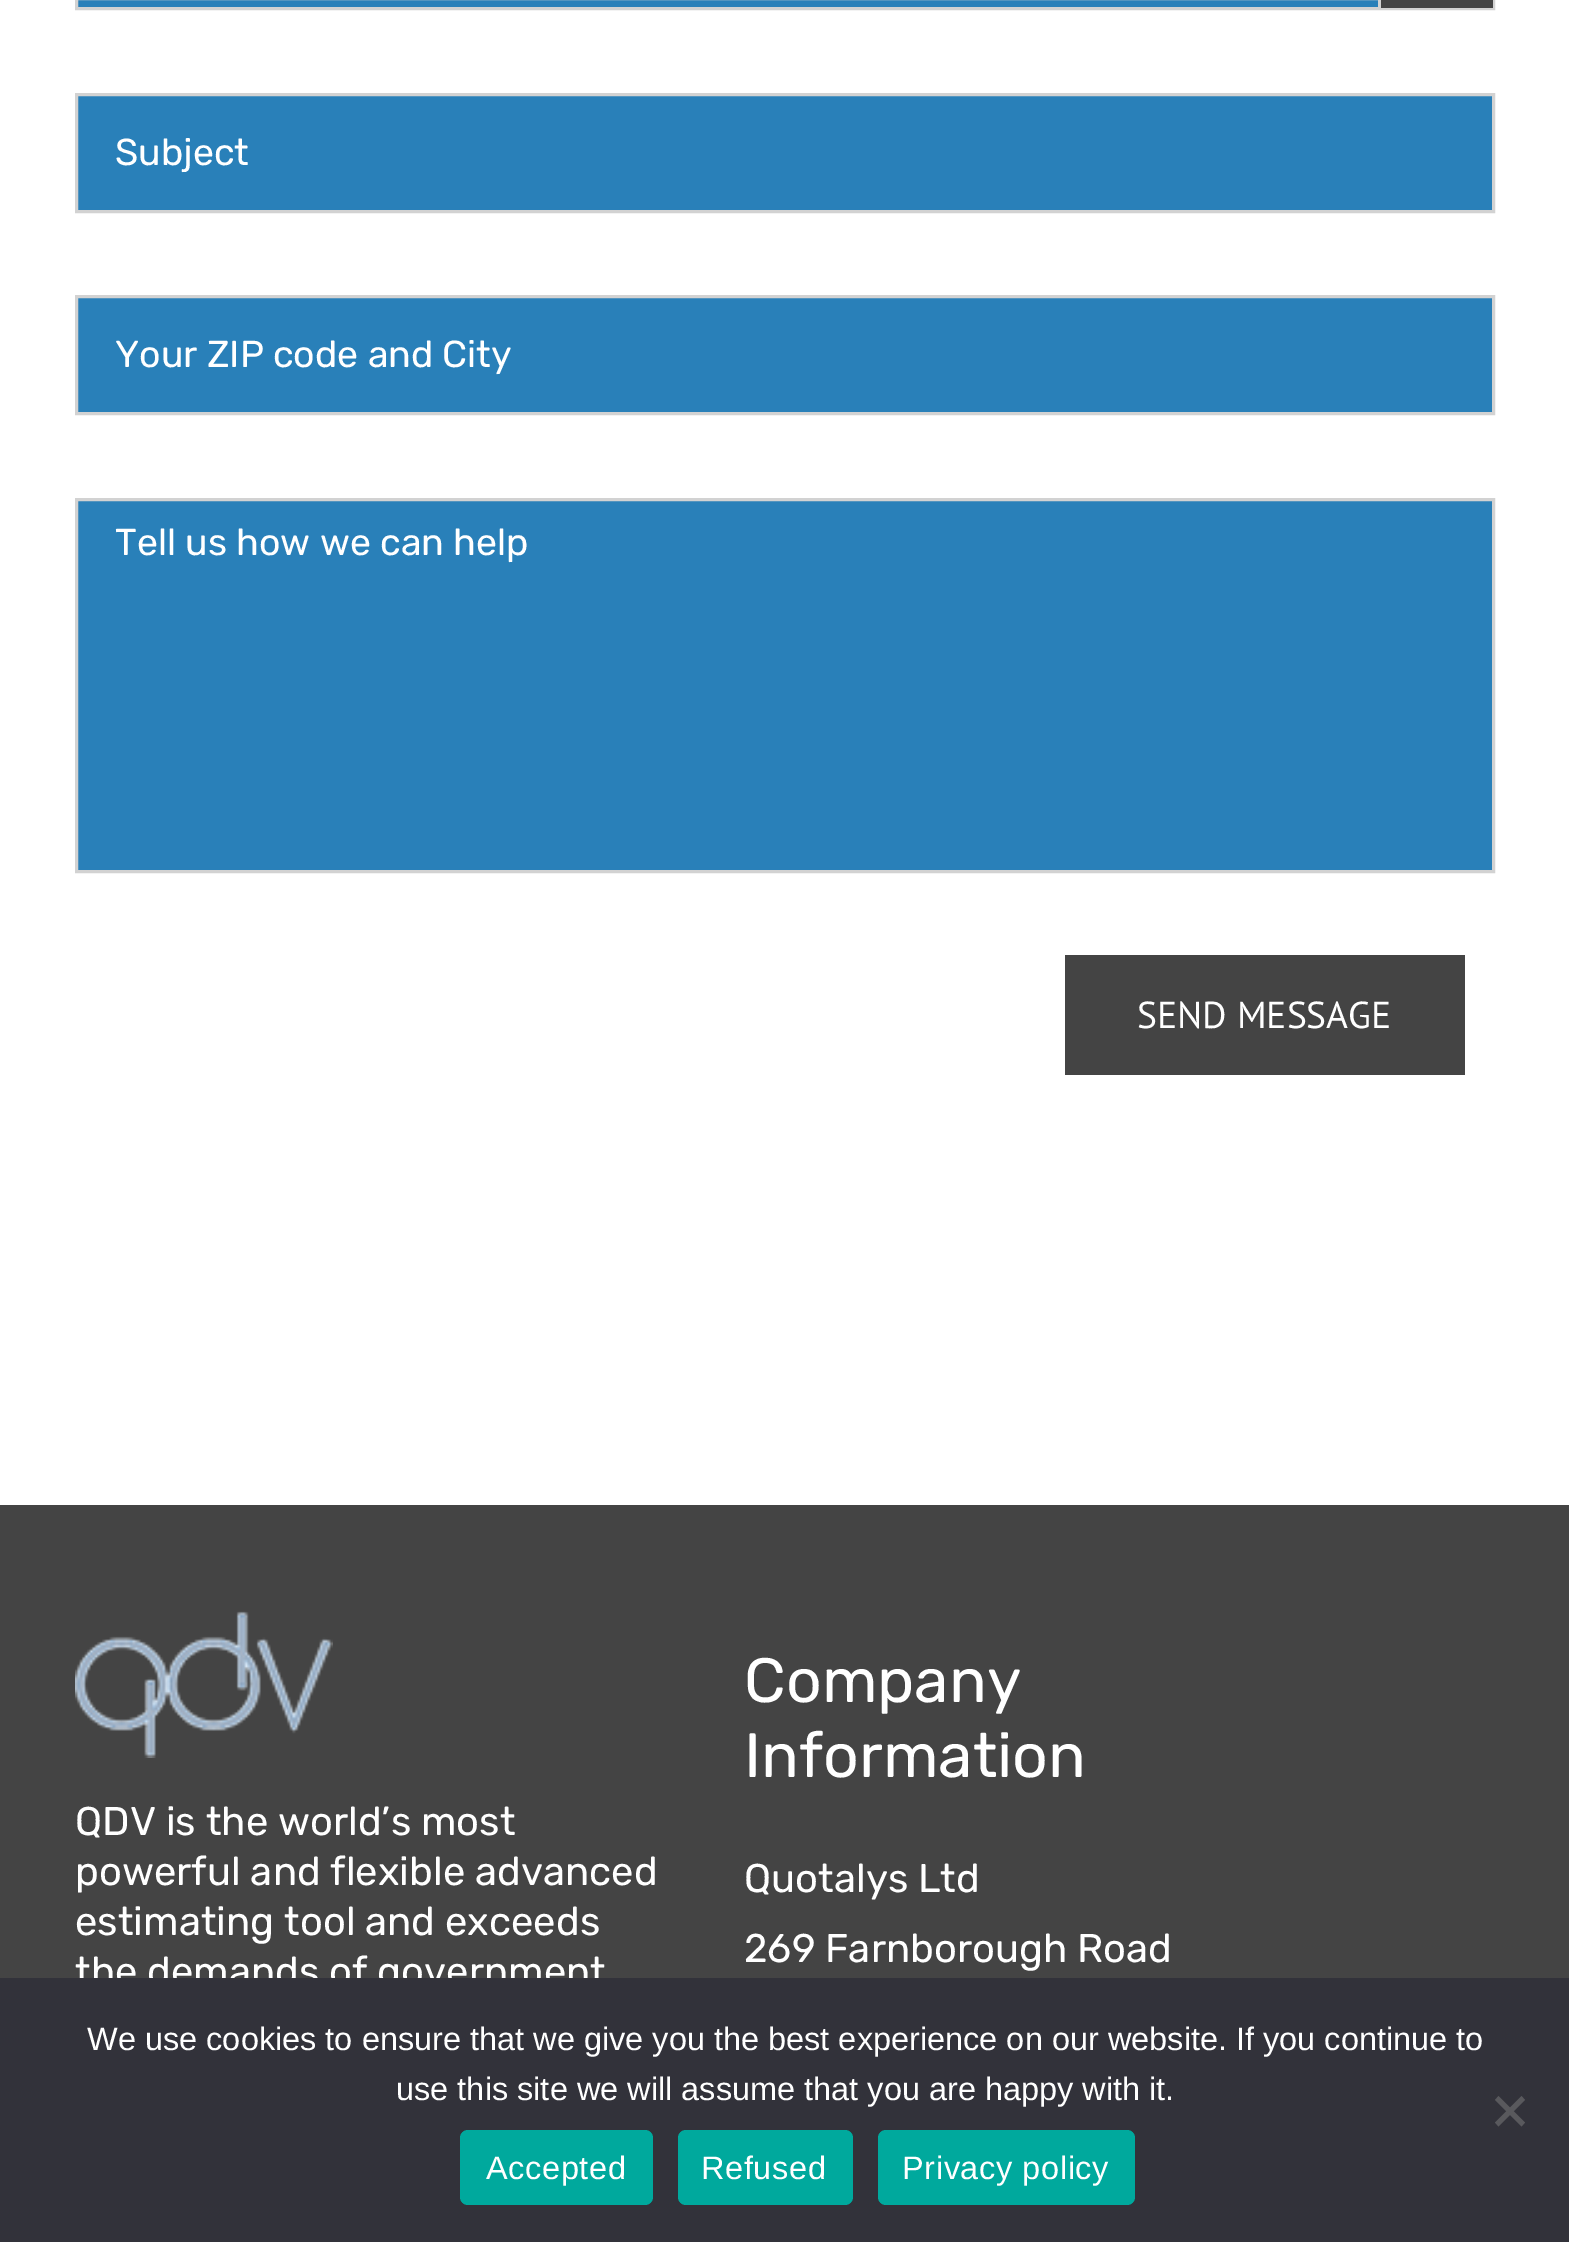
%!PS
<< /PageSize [1569 2242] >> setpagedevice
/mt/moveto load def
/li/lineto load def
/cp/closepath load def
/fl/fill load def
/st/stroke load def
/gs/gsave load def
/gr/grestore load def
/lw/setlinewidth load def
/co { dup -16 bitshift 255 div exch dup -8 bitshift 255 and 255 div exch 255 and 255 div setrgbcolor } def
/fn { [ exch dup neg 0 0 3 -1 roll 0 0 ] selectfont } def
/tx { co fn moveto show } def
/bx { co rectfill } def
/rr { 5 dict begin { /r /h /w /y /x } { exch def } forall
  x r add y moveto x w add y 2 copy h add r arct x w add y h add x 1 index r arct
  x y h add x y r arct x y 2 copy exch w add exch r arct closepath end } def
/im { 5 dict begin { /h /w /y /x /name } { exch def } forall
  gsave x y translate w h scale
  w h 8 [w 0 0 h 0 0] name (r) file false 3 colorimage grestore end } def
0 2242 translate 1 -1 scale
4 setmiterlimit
0 0 1569 2242 16#FFFFFF bx
78 0 1300 7 16#2980B9 bx
16#D2D2D2 co
3 lw
76.5 -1.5 1417 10 rectstroke
1378 0 115 8 16#444444 bx
1378 0 3 8 16#D2D2D2 bx
16#2980B9 co
76.5 94.5 mt 1493.5 94.5 li 1493.5 211.5 li 76.5 211.5 li cp gs fl gr
16#D2D2D2 co
st
16#2980B9 co
76.5 296.5 mt 1493.5 296.5 li 1493.5 413.5 li 76.5 413.5 li cp gs fl gr
16#D2D2D2 co
st
16#2980B9 co
76.5 499.5 mt 1493.5 499.5 li 1493.5 871.5 li 76.5 871.5 li cp gs fl gr
16#D2D2D2 co
st
1065 955 400 120 16#444444 bx
0 1505 1569 473 16#444444 bx
(media/1.raw) 75 1611 258 147 im
(Subject) 115 165 /Rubik-Regular 37.5 16#FFFFFF tx
(Your ZIP code and City) 115 367 /Rubik-Regular 37.5 16#FFFFFF tx
(Tell us how we can help) 115 555 /Rubik-Regular 37.5 16#FFFFFF tx
(SEND MESSAGE) 1137 1028 /PTSans-Regular 37.5 16#FFFFFF tx
(QDV is the world’s most) 75 1835 /Rubik-Regular 40 16#FFFFFF tx
(powerful and flexible advanced) 75 1885 /Rubik-Regular 40 16#FFFFFF tx
(estimating tool and exceeds) 75 1935 /Rubik-Regular 40 16#FFFFFF tx
(the demands of government) 75 1985 /Rubik-Regular 40 16#FFFFFF tx
(Company) 744 1702 /Rubik-Regular 62.5 16#FFFFFF tx
(Information) 744 1777 /Rubik-Regular 62.5 16#FFFFFF tx
(Quotalys Ltd) 744 1892 /Rubik-Regular 40 16#FFFFFF tx
(269 Farnborough Road) 744 1962 /Rubik-Regular 40 16#FFFFFF tx
0 1978 1569 264 16#32323A bx
(We use cookies to ensure that we give you the best experience on our website. If you continue to) 87 2050 /LiberationSans-Regular 32.5 16#FFFFFF tx
(use this site we will assume that you are happy with it.) 396 2100 /LiberationSans-Regular 32.5 16#FFFFFF tx
16#59595D co
1521.5 2096 mt 1525 2100 li 1498.5 2126.5 li 1495 2122.5 li cp fl
1495 2100 mt 1498.5 2096 li 1525 2122.5 li 1521.5 2126.5 li cp fl
16#00A99D co
460 2130 193 75 8 rr fl
16#FFFFFF co
486 2179 mt .6 0 (Accepted) ashow
16#00A99D co
678 2130 175 75 8 rr fl
16#FFFFFF co
701 2179 mt .6 0 (Refused) ashow
16#00A99D co
878 2130 257 75 8 rr fl
16#FFFFFF co
902 2179 mt .6 0 (Privacy policy) ashow
showpage
